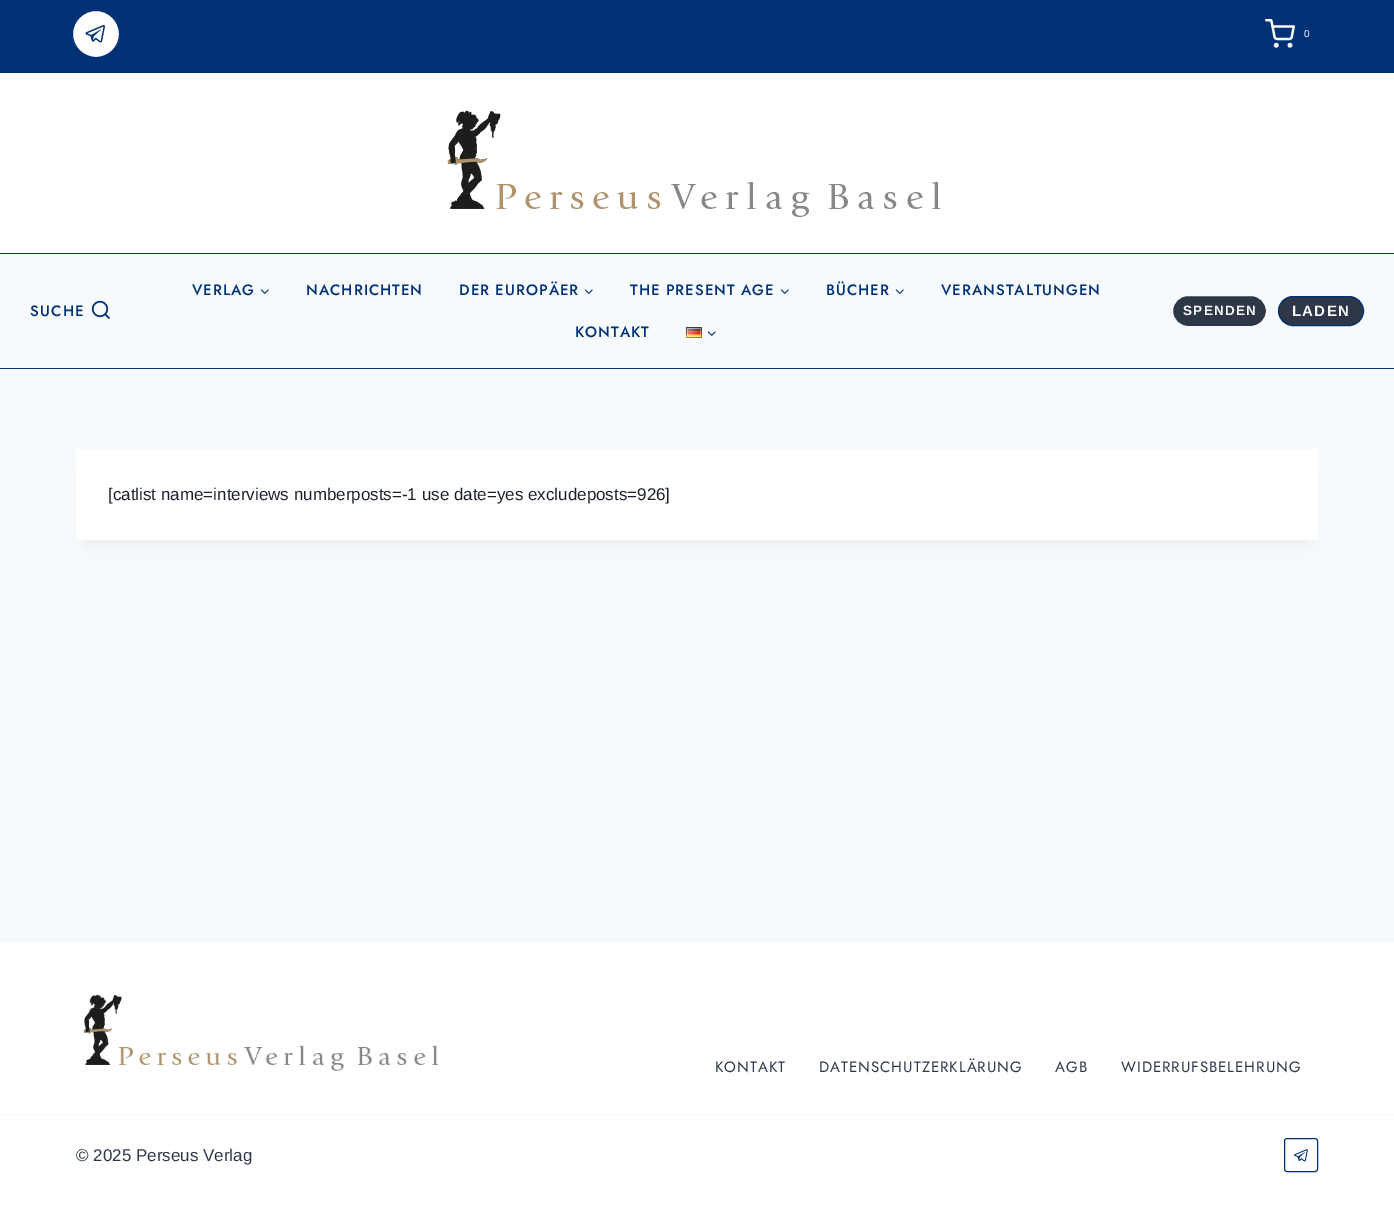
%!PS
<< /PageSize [1394 1216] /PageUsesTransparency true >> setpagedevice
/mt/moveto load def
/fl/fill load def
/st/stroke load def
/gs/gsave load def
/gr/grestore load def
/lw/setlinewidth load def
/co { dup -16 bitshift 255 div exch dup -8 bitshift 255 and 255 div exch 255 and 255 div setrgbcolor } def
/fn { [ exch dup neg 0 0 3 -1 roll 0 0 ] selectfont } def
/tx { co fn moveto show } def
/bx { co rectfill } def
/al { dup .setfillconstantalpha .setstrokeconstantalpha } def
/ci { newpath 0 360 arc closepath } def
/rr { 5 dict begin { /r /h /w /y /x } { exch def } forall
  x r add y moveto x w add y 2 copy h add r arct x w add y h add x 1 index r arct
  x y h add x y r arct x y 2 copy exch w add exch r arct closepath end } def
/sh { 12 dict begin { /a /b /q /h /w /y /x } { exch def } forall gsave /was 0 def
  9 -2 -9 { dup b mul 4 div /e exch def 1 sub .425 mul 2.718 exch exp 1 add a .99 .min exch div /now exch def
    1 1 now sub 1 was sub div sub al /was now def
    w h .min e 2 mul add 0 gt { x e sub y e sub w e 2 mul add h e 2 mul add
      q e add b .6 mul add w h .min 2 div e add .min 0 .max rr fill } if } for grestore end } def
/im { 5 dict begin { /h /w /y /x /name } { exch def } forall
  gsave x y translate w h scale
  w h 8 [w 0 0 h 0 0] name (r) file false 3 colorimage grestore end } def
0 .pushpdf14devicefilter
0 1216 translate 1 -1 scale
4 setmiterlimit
0 0 1394 1216 16#F7FAFC bx
0 73 1394 180 16#FFFFFF bx
0 0 1394 73 16#003174 bx
16#FFFFFF co
96 34 23.5 ci gs fl gr
16#003174 co
st
(media/1.raw) 85 25 20 18 im
(media/2.raw) 1265 19 30 29 im
(media/3.raw) 447 110 494 107 im
0 253 1394 1 16#003174 bx
0 368 1394 1 16#003174 bx
(media/4.raw) 91 300 19 19 im
(media/5.raw) 260 289 9 5 im
(media/5.raw) 584 289 9 5 im
(media/5.raw) 780 289 9 5 im
(media/5.raw) 895 289 9 5 im
(media/6.raw) 686 327 16 11 im
(media/5.raw) 707 331 9 5 im
16#2D3748 co
1172 295 95 32 16 rr gs fl gr
16#F7FAFC co
2 lw
st
16#2D3748 co
1278.5 296.5 85 29 14.5 rr gs fl gr
16#003174 co
1 lw
st
16#000000 co
86 474 1222 71 0 7.5 .05 sh
76 449 1242 91 16#FFFFFF bx
0 943 1394 273 16#FFFFFF bx
(media/7.raw) 83 994 356 77 im
0 1114 1394 1 16#F7FAFC bx
16#003174 co
1284.5 1138.5 33 33 2.5 rr st
(media/8.raw) 1294 1149 14 13 im
(0) 1304 37 /LiberationSans-Regular 10 16#F7FAFC tx
/Jost-Medium 15 fn
16#003174 co
30 316 mt 1.25 0 (SUCHE) ashow
192 295 mt 1 0 (VERLAG) ashow
306 295 mt 1 0 (NACHRICHTEN) ashow
459 295 mt 1 0 (DER EUROPÄER) ashow
630 295 mt 1 0 (THE PRESENT AGE) ashow
826 295 mt 1 0 (BÜCHER) ashow
941 295 mt 1 0 (VERANSTALTUNGEN) ashow
575 337 mt 1 0 (KONTAKT) ashow
/LiberationSans-Bold 13.5 fn
16#F7FAFC co
1183 315 mt 1.25 0 (SPENDEN) ashow
/LiberationSans-Bold 15 fn
1292 316 mt 1.25 0 (LADEN) ashow
([catlist name=interviews numberposts=-1 use date=yes excludeposts=926]) 108 500 /LiberationSans-Regular 17 16#1A202C tx
/Jost-Regular 15 fn
16#2D3748 co
715 1072 mt 1 0 (KONTAKT) ashow
819 1072 mt 1 0 (DATENSCHUTZERKLÄRUNG) ashow
1055 1072 mt 1 0 (AGB) ashow
1121 1072 mt 1 0 (WIDERRUFSBELEHRUNG) ashow
(© 2025 Perseus Verlag) 76 1161 /LiberationSans-Regular 17 16#2D3748 tx
.poppdf14devicefilter showpage
